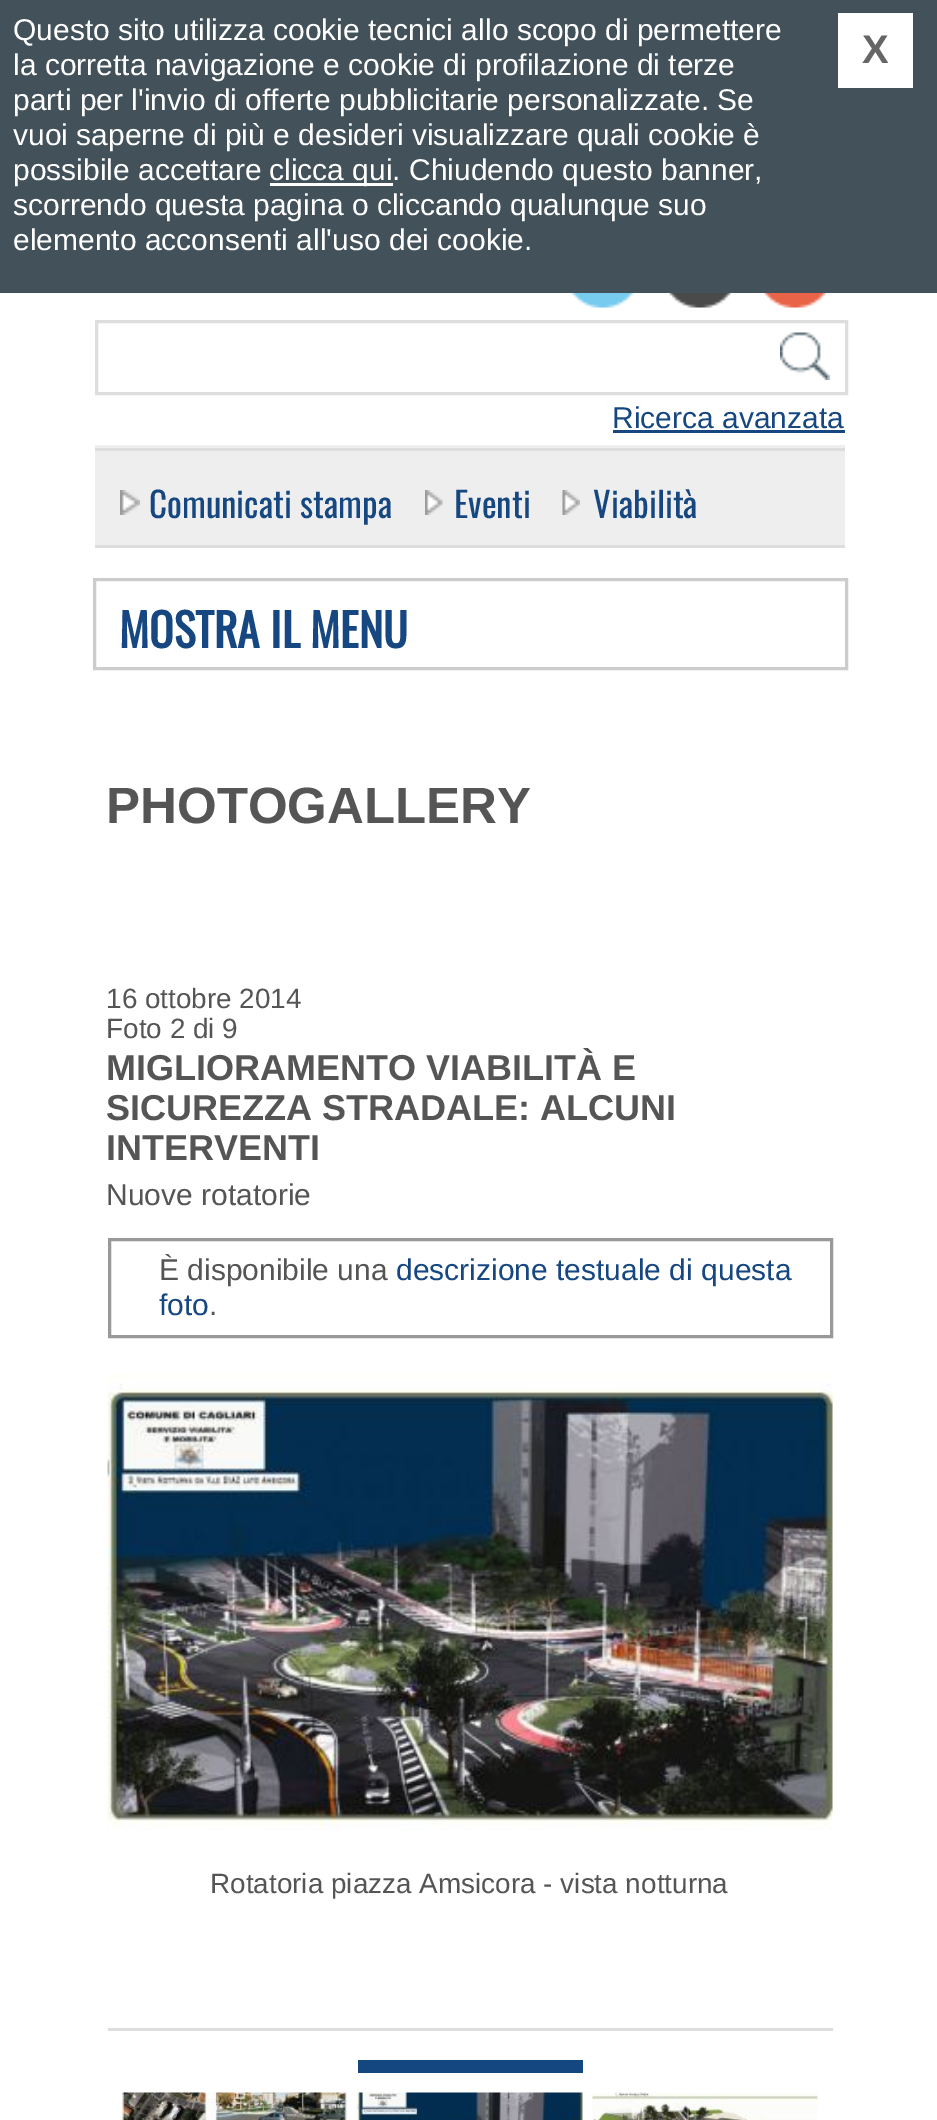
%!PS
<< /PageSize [937 2120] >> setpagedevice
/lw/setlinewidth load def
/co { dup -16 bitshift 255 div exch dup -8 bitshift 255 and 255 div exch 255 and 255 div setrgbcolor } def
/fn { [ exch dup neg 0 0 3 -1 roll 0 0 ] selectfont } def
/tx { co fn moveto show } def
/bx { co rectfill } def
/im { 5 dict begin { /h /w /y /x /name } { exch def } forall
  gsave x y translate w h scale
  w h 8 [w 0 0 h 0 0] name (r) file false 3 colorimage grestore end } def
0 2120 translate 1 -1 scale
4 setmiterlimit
0 0 937 2120 16#FFFFFF bx
0 0 937 293 16#43525A bx
270 183 123 3 16#FFFFFF bx
838 13 75 75 16#FFFFFF bx
95 445 750 3 16#EEEEEE bx
(media/1.raw) 570 293 65 15 im
(media/2.raw) 668 293 64 15 im
(media/3.raw) 763 293 64 15 im
16#DDDDDD co
3 lw
96.5 321.5 750 72 rectstroke
(media/4.raw) 780 332 50 48 im
613 430 232 3 16#164781 bx
95 451 750 94 16#EEEEEE bx
95 448 750 3 16#DDDDDD bx
95 545 750 3 16#DDDDDD bx
(media/5.raw) 120 490 20 25 im
(media/6.raw) 425 490 18 25 im
(media/7.raw) 562 490 18 25 im
16#CCCCCC co
94.5 579.5 752 89 rectstroke
16#999999 co
109.5 1239.5 722 97 rectstroke
(media/8.raw) 107 1374 726 457 im
108 2028 725 3 16#DDDDDD bx
(media/9.raw) 122 2092 226 28 im
358 2060 225 13 16#144780 bx
(media/10.raw) 357 2092 226 28 im
(media/11.raw) 592 2092 226 28 im
(Questo sito utilizza cookie tecnici allo scopo di permettere) 13 40 /LiberationSans-Regular 30 16#FFFFFF tx
(la corretta navigazione e cookie di profilazione di terze) 13 75 /LiberationSans-Regular 30 16#FFFFFF tx
(parti per l'invio di offerte pubblicitarie personalizzate. Se) 13 110 /LiberationSans-Regular 30 16#FFFFFF tx
(vuoi saperne di più e desideri visualizzare quali cookie è) 13 145 /LiberationSans-Regular 30 16#FFFFFF tx
(possibile accettare) 13 180 /LiberationSans-Regular 30 16#FFFFFF tx
(clicca qui. Chiudendo questo banner,) 269 180 /LiberationSans-Regular 30 16#FFFFFF tx
(scorrendo questa pagina o cliccando qualunque suo) 13 215 /LiberationSans-Regular 30 16#FFFFFF tx
(elemento acconsenti all'uso dei cookie.) 13 250 /LiberationSans-Regular 30 16#FFFFFF tx
(X) 862 63 /LiberationSans-Bold 40 16#666666 tx
(Ricerca avanzata) 612 428 /LiberationSans-Regular 30 16#164781 tx
(Comunicati stampa) 149 518 /Oswald-Regular 35 16#164781 tx
(Eventi) 454 518 /Oswald-Regular 35 16#164781 tx
(Viabilità) 593 518 /Oswald-Regular 35 16#164781 tx
(MOSTRA IL MENU) 119 648 /Oswald-Bold 45.5 16#164781 tx
(PHOTOGALLERY) 106 823 /LiberationSans-Bold 51 16#555555 tx
(16 ottobre 2014) 106 1008 /LiberationSans-Regular 27.9 16#555555 tx
(Foto 2 di 9) 106 1038 /LiberationSans-Regular 27.9 16#555555 tx
(MIGLIORAMENTO VIABILITÀ E) 106 1080 /LiberationSans-Bold 36 16#555555 tx
(SICUREZZA STRADALE: ALCUNI) 106 1120 /LiberationSans-Bold 36 16#555555 tx
(INTERVENTI) 106 1160 /LiberationSans-Bold 36 16#555555 tx
(Nuove rotatorie) 106 1205 /LiberationSans-Regular 30 16#555555 tx
(È disponibile una) 159 1280 /LiberationSans-Regular 30 16#555555 tx
(descrizione testuale di questa) 396 1280 /LiberationSans-Regular 30 16#164781 tx
(foto) 159 1315 /LiberationSans-Regular 30 16#164781 tx
(.) 209 1315 /LiberationSans-Regular 30 16#555555 tx
(Rotatoria piazza Amsicora - vista notturna) 210 1893 /LiberationSans-Regular 27.9 16#555555 tx
showpage
